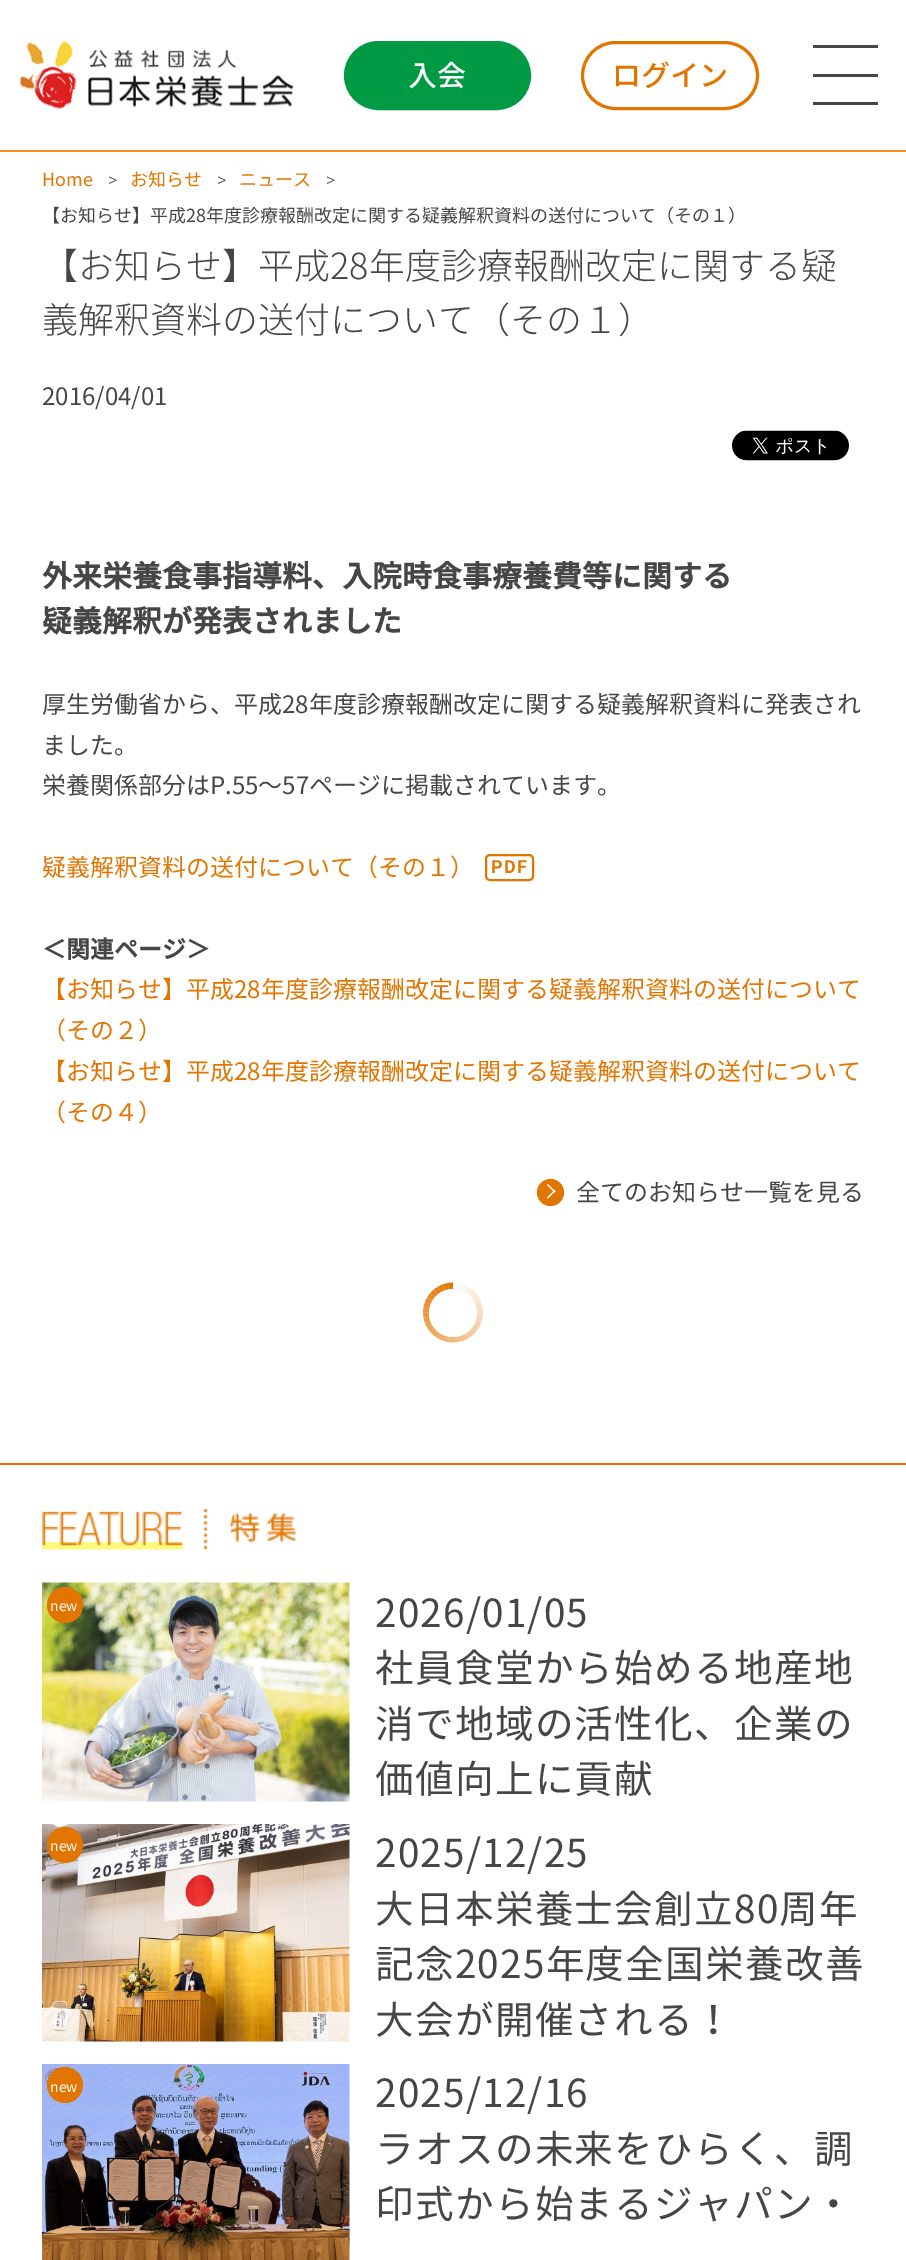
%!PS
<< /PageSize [906 2260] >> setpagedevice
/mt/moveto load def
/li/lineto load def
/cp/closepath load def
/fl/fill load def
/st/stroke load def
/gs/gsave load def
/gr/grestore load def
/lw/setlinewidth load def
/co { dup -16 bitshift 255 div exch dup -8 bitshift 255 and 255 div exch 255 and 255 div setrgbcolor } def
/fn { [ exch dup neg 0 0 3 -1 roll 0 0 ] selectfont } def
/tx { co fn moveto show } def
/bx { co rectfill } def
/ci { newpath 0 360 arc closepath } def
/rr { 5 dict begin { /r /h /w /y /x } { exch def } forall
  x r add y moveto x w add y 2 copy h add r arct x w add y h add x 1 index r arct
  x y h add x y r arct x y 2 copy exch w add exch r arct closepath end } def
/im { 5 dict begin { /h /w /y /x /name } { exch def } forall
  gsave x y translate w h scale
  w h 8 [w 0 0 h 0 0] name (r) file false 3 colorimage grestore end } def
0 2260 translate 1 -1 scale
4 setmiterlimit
0 0 906 2260 16#FFFFFF bx
0 150 906 2 16#F5911F bx
(media/1.raw) 19 41 275 69 im
813 45 65 3 16#464646 bx
813 74 65 3 16#464646 bx
813 102 65 3 16#464646 bx
16#009944 co
345.5 42.5 184 66 33 rr gs fl gr
3 lw
st
16#E27500 co
582.5 42.5 175 66 33 rr st
(media/2.raw) 732 430 117 31 im
2 lw
486 855 47 25 4 rr st
550.5 1192.5 13.5 ci fl
16#FFFFFF co
548 1184 mt 555.5 1191.5 li 554.5 1192.5 li 547 1185 li cp fl
547 1197.5 mt 554.5 1190 li 555.5 1191 li 548 1198.5 li cp fl
(media/3.raw) 423 1282 60 61 im
453 1313 24 ci fl
0 1463 906 2 16#E27500 bx
(media/4.raw) 42 1509 254 41 im
(media/5.raw) 42 1582 308 220 im
65 1605 18 ci fl
(media/6.raw) 42 1824 308 218 im
65 1845 18 ci fl
(media/7.raw) 42 2064 308 196 im
65 2085 18 ci fl
(入会) 408 86 /NotoSansJP-Medium 29 16#FFFFFF tx
(ログイン) 612 86 /NotoSansJP-Medium 29 16#E27500 tx
(Home) 42 186 /NotoSansJP-Regular 18 16#E27500 tx
(>) 108 186 /Roboto-Light 18 16#464646 tx
(お知らせ) 130 186 /NotoSansJP-Regular 18 16#E27500 tx
(>) 217 186 /Roboto-Light 18 16#464646 tx
(ニュース) 239 186 /NotoSansJP-Regular 18 16#E27500 tx
(>) 326 186 /Roboto-Light 18 16#464646 tx
(【お知らせ】平成28年度診療報酬改定に関する疑義解釈資料の送付について（その１）) 42 222 /NotoSansJP-Regular 18 16#464646 tx
(【お知らせ】平成28年度診療報酬改定に関する疑) 42 279 /NotoSansJP-Light 36 16#464646 tx
(義解釈資料の送付について（その１）) 42 333 /NotoSansJP-Light 36 16#464646 tx
(2016/04/01) 42 405 /NotoSansJP-Regular 24 16#464646 tx
(外来栄養食事指導料、入院時食事療養費等に関する) 42 587 /NotoSansJP-Bold 30 16#464646 tx
(疑義解釈が発表されました) 42 632 /NotoSansJP-Bold 30 16#464646 tx
(厚生労働省から、平成28年度診療報酬改定に関する疑義解釈資料に発表され) 42 713 /NotoSansJP-Regular 24 16#464646 tx
(ました。) 42 754 /NotoSansJP-Regular 24 16#464646 tx
(栄養関係部分はP.55～57ページに掲載されています。) 42 794 /NotoSansJP-Regular 24 16#464646 tx
(疑義解釈資料の送付について（その１）) 42 876 /NotoSansJP-Regular 24 16#E27500 tx
/Roboto-Bold 18 fn
491 873 mt 1.5 0 (PDF) ashow
(＜関連ページ＞) 42 958 /NotoSansJP-Bold 24 16#464646 tx
(【お知らせ】平成28年度診療報酬改定に関する疑義解釈資料の送付について) 42 998 /NotoSansJP-Regular 24 16#E27500 tx
(（その２）) 42 1039 /NotoSansJP-Regular 24 16#E27500 tx
(【お知らせ】平成28年度診療報酬改定に関する疑義解釈資料の送付について) 42 1080 /NotoSansJP-Regular 24 16#E27500 tx
(（その４）) 42 1121 /NotoSansJP-Regular 24 16#E27500 tx
(全てのお知らせ一覧を見る) 576 1201 /NotoSansJP-Regular 24 16#464646 tx
(new) 50 1611 /NotoSansJP-Regular 14 16#FFFFFF tx
/NotoSansJP-Regular 38.7 fn
16#464646 co
375 1627 mt 1.2 0 (2026/01/05) ashow
375 1682 mt 1.2 0 (社員食堂から始める地産地) ashow
375 1738 mt 1.2 0 (消で地域の活性化、企業の) ashow
375 1793 mt 1.2 0 (価値向上に貢献) ashow
(new) 50 1851 /NotoSansJP-Regular 14 16#FFFFFF tx
/NotoSansJP-Regular 38.7 fn
16#464646 co
375 1867 mt 1.2 0 (2025/12/25) ashow
375 1923 mt 1.2 0 (大日本栄養士会創立80周年) ashow
375 1978 mt 1.2 0 (記念2025年度全国栄養改善) ashow
375 2034 mt 1.2 0 (大会が開催される！) ashow
(new) 50 2092 /NotoSansJP-Regular 14 16#FFFFFF tx
/NotoSansJP-Regular 38.7 fn
16#464646 co
375 2107 mt 1.2 0 (2025/12/16) ashow
375 2163 mt 1.2 0 (ラオスの未来をひらく、調) ashow
375 2218 mt 1.2 0 (印式から始まるジャパン・) ashow
showpage
